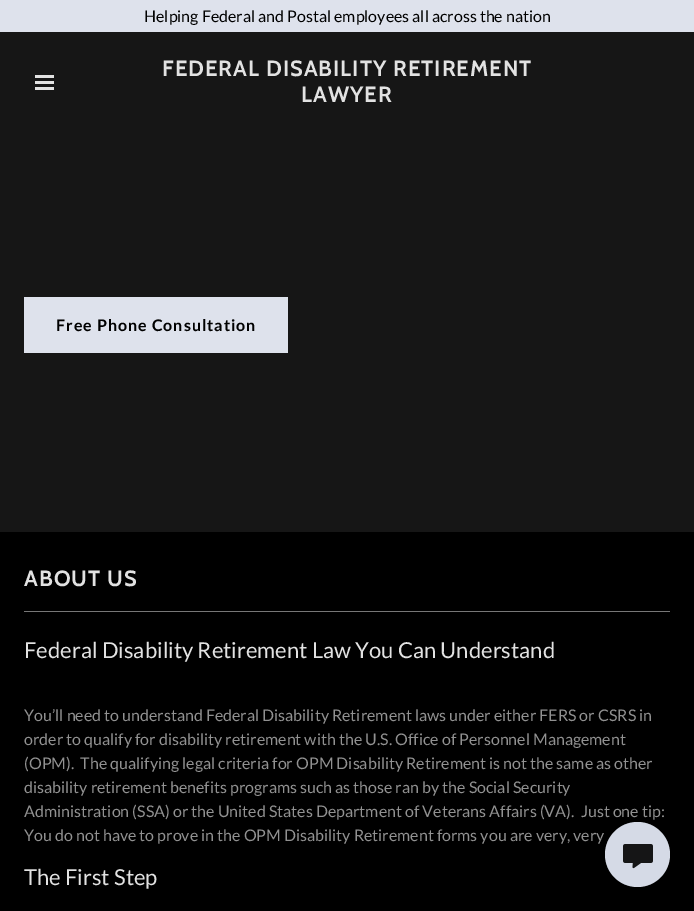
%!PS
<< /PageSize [694 911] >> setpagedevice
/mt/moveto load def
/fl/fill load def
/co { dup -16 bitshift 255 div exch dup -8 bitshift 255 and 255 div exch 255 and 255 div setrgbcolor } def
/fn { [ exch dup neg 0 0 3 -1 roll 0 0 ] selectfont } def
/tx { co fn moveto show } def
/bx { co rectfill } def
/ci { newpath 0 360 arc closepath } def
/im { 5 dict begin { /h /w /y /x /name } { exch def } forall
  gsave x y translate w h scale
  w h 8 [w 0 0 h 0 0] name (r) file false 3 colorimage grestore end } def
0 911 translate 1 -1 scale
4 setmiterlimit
0 0 694 911 16#000000 bx
0 32 694 500 16#161616 bx
0 0 694 32 16#DEE2EC bx
35 75 19 3 16#E2E2E2 bx
35 81 19 3 16#E2E2E2 bx
35 87 19 3 16#E2E2E2 bx
24 297 264 56 16#DEE2EC bx
24 611 646 1 16#777777 bx
16#D5DAE6 co
637.5 854.5 32.5 ci fl
(media/1.raw) 623 844 30 25 im
(Helping Federal and Postal employees all across the nation) 144 22 /Lato-Regular 16 16#000000 tx
/Cabin-Bold 22 fn
16#E2E2E2 co
162 76 mt 1 0 (FEDERAL DISABILITY RETIREMENT) ashow
301 102 mt 1 0 (LAWYER) ashow
/Lato-Bold 16 fn
16#000000 co
56 331 mt 1 0 (Free Phone Consultation) ashow
/Cabin-Bold 22 fn
16#E2E2E2 co
24 586 mt 1 0 (ABOUT US) ashow
(Federal Disability Retirement Law You Can Understand) 24 658 /Lato-Regular 22 16#E2E2E2 tx
(You’ll need to understand Federal Disability Retirement laws under either FERS or CSRS in) 24 721 /Lato-Regular 16 16#919191 tx
(order to qualify for disability retirement with the U.S. Office of Personnel Management) 24 745 /Lato-Regular 16 16#919191 tx
(\(OPM\).  The qualifying legal criteria for OPM Disability Retirement is not the same as other) 24 769 /Lato-Regular 16 16#919191 tx
(disability retirement benefits programs such as those ran by the Social Security) 24 793 /Lato-Regular 16 16#919191 tx
(Administration \(SSA\) or the United States Department of Veterans Affairs \(VA\).  Just one tip:) 24 817 /Lato-Regular 16 16#919191 tx
(You do not have to prove in the OPM Disability Retirement forms you are very, very) 24 841 /Lato-Regular 16 16#919191 tx
(The First Step) 24 885 /Lato-Regular 22 16#E2E2E2 tx
showpage
